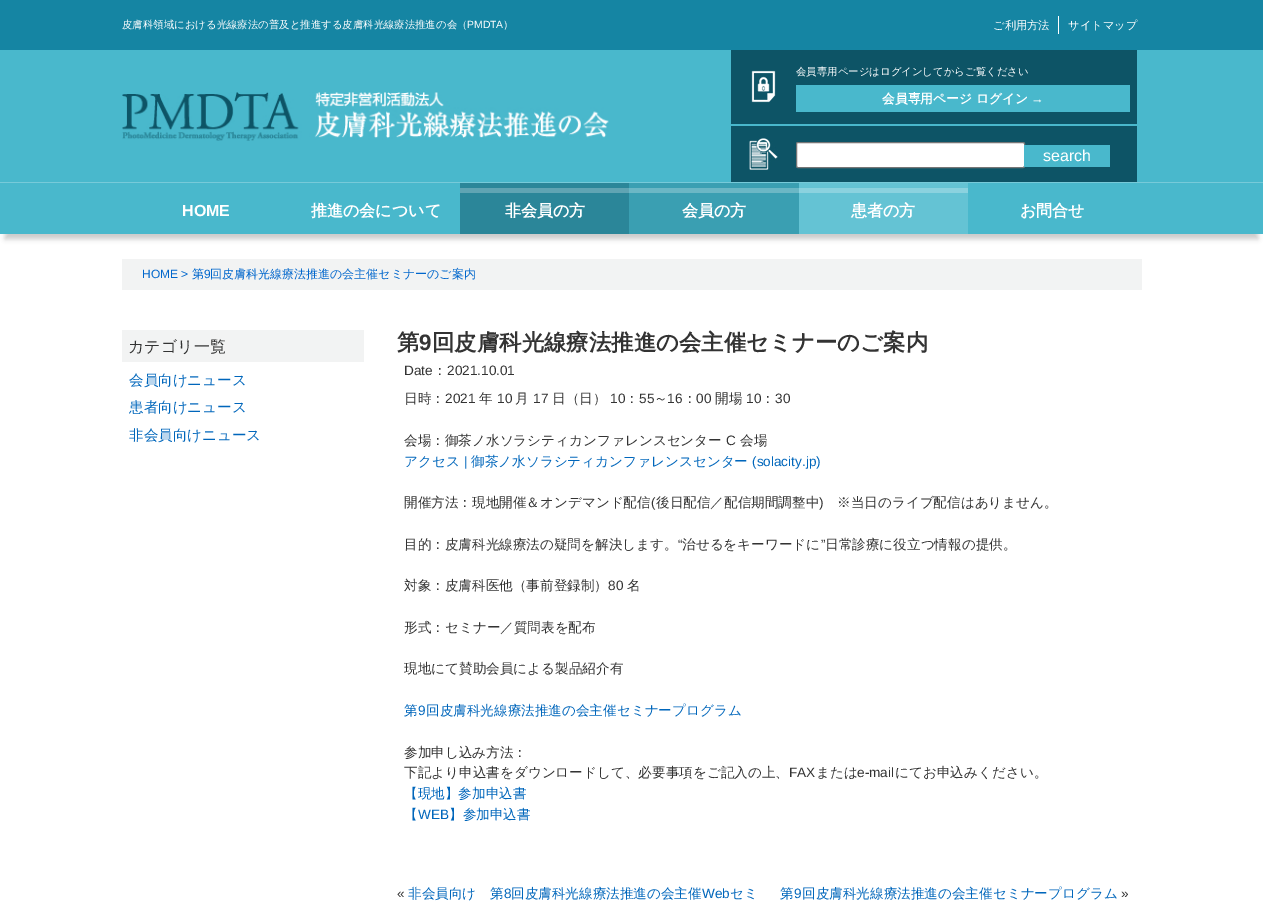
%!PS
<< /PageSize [1263 905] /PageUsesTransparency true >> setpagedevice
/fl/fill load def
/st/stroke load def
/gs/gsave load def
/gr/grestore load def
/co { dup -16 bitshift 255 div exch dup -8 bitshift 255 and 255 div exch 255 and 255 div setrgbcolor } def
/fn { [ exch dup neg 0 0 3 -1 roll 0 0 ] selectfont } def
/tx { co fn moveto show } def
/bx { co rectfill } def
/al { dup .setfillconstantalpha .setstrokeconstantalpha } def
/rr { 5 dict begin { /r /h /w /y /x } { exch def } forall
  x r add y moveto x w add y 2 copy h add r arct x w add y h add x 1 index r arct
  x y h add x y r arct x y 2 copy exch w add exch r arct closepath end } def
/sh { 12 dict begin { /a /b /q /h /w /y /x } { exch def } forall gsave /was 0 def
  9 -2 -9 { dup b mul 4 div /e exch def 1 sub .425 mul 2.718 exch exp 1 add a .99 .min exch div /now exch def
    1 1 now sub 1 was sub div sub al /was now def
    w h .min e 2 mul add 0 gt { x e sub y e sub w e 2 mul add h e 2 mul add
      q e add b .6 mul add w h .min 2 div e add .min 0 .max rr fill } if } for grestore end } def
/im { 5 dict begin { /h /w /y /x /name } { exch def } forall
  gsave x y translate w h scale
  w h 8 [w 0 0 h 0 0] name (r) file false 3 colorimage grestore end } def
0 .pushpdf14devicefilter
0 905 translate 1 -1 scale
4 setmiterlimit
0 0 1263 905 16#FFFFFF bx
16#000000 co
5 15 1253 224 0 2.5 .2 sh
0 0 1263 50 16#1585A3 bx
1058 16 1 18 16#FFFFFF bx
0 50 1263 132 16#49B8CC bx
(media/1.raw) 122 92 487 49 im
731 50 406 132 16#0D5466 bx
(media/2.raw) 751 70 25 33 im
796 85 334 27 16#49B8CC bx
731 124 406 2 16#49B8CC bx
(media/3.raw) 749 138 29 32 im
16#FFFFFF co
796.5 142.5 228 25 1.5 rr gs fl gr
16#767676 co
st
1024 145 86 22 16#49B8CC bx
0 183 1263 51 16#49B8CC bx
0 182 1263 1 16#77CAD9 bx
460 183 169 51 16#2B8699 bx
460 188 169 5 16#60A4B3 bx
629 183 170 51 16#3A9FB2 bx
629 188 170 5 16#6BB7C5 bx
799 183 169 51 16#64C3D4 bx
799 188 169 5 16#8BD2DF bx
122 259 1020 31 16#F2F3F3 bx
122 330 242 32 16#F2F3F3 bx
(皮膚科領域における光線療法の普及と推進する皮膚科光線療法推進の会（) 122 28 /WenQuanYiZenHei-Medium 10.4 16#FFFFFF tx
(PMDTA) 467 28 /LiberationSans-Regular 10.4 16#FFFFFF tx
(）) 503 28 /WenQuanYiZenHei-Medium 10.4 16#FFFFFF tx
(ご利用方法) 993 29 /WenQuanYiZenHei-Medium 11.25 16#FFFFFF tx
(サイトマップ) 1068 29 /WenQuanYiZenHei-Medium 11.25 16#FFFFFF tx
(会員専用ページはログインしてからご覧ください) 796 75 /WenQuanYiZenHei-Medium 10.4 16#FFFFFF tx
(会員専用ページ ログイン) 882 103 /WenQuanYiZenHei-Bold 12.75 16#FFFFFF tx
(→) 1031 103 /LiberationSans-Bold 12.75 16#FFFFFF tx
(search) 1043 161 /LiberationSans-Regular 16 16#FFFFFF tx
(HOME) 182 216 /LiberationSans-Bold 16 16#FFFFFF tx
(推進の会について) 311 216 /WenQuanYiZenHei-Bold 16 16#FFFFFF tx
(非会員の方) 505 216 /WenQuanYiZenHei-Bold 16 16#FFFFFF tx
(会員の方) 682 216 /WenQuanYiZenHei-Bold 16 16#FFFFFF tx
(患者の方) 851 216 /WenQuanYiZenHei-Bold 16 16#FFFFFF tx
(お問合せ) 1020 216 /WenQuanYiZenHei-Bold 16 16#FFFFFF tx
(HOME >) 142 278 /LiberationSans-Regular 12 16#0066CC tx
(第) 192 278 /WenQuanYiZenHei-Medium 12 16#0066CC tx
(9) 204 278 /LiberationSans-Regular 12 16#0066CC tx
(回皮膚科光線療法推進の会主催セミナーのご案内) 210 278 /WenQuanYiZenHei-Medium 12 16#0066CC tx
(カテゴリ一覧) 128 352 /WenQuanYiZenHei-Medium 16 16#333333 tx
(会員向けニュース) 129 385 /WenQuanYiZenHei-Medium 14.5 16#0066BB tx
(患者向けニュース) 129 412 /WenQuanYiZenHei-Medium 14.5 16#0066BB tx
(非会員向けニュース) 129 440 /WenQuanYiZenHei-Medium 14.5 16#0066BB tx
(第) 397 350 /WenQuanYiZenHei-Bold 22.4 16#333333 tx
(9) 419 350 /LiberationSans-Bold 22.4 16#333333 tx
(回皮膚科光線療法推進の会主催セミナーのご案内) 432 350 /WenQuanYiZenHei-Bold 22.4 16#333333 tx
(Date) 404 375 /LiberationSans-Regular 13.6 16#333333 tx
(：) 433 375 /WenQuanYiZenHei-Medium 13.6 16#333333 tx
(2021.10.01) 447 375 /LiberationSans-Regular 13.6 16#333333 tx
(日時：) 404 403 /WenQuanYiZenHei-Medium 13.6 16#333333 tx
(2021) 445 403 /LiberationSans-Regular 13.6 16#333333 tx
(年) 479 403 /WenQuanYiZenHei-Medium 13.6 16#333333 tx
(10) 497 403 /LiberationSans-Regular 13.6 16#333333 tx
(月) 515 403 /WenQuanYiZenHei-Medium 13.6 16#333333 tx
(17) 533 403 /LiberationSans-Regular 13.6 16#333333 tx
(日（日）) 552 403 /WenQuanYiZenHei-Medium 13.6 16#333333 tx
(10) 610 403 /LiberationSans-Regular 13.6 16#333333 tx
(：) 625 403 /WenQuanYiZenHei-Medium 13.6 16#333333 tx
(55) 639 403 /LiberationSans-Regular 13.6 16#333333 tx
(～) 654 403 /WenQuanYiZenHei-Medium 13.6 16#333333 tx
(16) 667 403 /LiberationSans-Regular 13.6 16#333333 tx
(：) 683 403 /WenQuanYiZenHei-Medium 13.6 16#333333 tx
(00) 696 403 /LiberationSans-Regular 13.6 16#333333 tx
(開場) 715 403 /WenQuanYiZenHei-Medium 13.6 16#333333 tx
(10) 746 403 /LiberationSans-Regular 13.6 16#333333 tx
(：) 761 403 /WenQuanYiZenHei-Medium 13.6 16#333333 tx
(30) 775 403 /LiberationSans-Regular 13.6 16#333333 tx
(会場：御茶ノ水ソラシティカンファレンスセンター) 404 445 /WenQuanYiZenHei-Medium 13.6 16#333333 tx
(C) 726 445 /LiberationSans-Regular 13.6 16#333333 tx
(会場) 740 445 /WenQuanYiZenHei-Medium 13.6 16#333333 tx
(アクセス) 404 466 /WenQuanYiZenHei-Medium 13.6 16#0066BB tx
(|) 464 466 /LiberationSans-Regular 13.6 16#0066BB tx
(御茶ノ水ソラシティカンファレンスセンター) 471 466 /WenQuanYiZenHei-Medium 13.6 16#0066BB tx
(\(solacity.jp\)) 752 466 /LiberationSans-Regular 13.6 16#0066BB tx
(開催方法：現地開催＆オンデマンド配信) 404 507 /WenQuanYiZenHei-Medium 13.6 16#333333 tx
(\() 651 507 /LiberationSans-Regular 13.6 16#333333 tx
(後日配信／配信期間調整中) 656 507 /WenQuanYiZenHei-Medium 13.6 16#333333 tx
(\)) 819 507 /LiberationSans-Regular 13.6 16#333333 tx
(※当日のライブ配信はありません。) 837 507 /WenQuanYiZenHei-Medium 13.6 16#333333 tx
(目的：皮膚科光線療法の疑問を解決します。) 404 549 /WenQuanYiZenHei-Medium 13.6 16#333333 tx
(“) 678 549 /LiberationSans-Regular 13.6 16#333333 tx
(治せるをキーワードに) 682 549 /WenQuanYiZenHei-Medium 13.6 16#333333 tx
(”) 821 549 /LiberationSans-Regular 13.6 16#333333 tx
(日常診療に役立つ情報の提供。) 825 549 /WenQuanYiZenHei-Medium 13.6 16#333333 tx
(対象：皮膚科医他（事前登録制）) 404 590 /WenQuanYiZenHei-Medium 13.6 16#333333 tx
(80) 608 590 /LiberationSans-Regular 13.6 16#333333 tx
(名) 627 590 /WenQuanYiZenHei-Medium 13.6 16#333333 tx
(形式：セミナー／質問表を配布) 404 632 /WenQuanYiZenHei-Medium 13.6 16#333333 tx
(現地にて賛助会員による製品紹介有) 404 673 /WenQuanYiZenHei-Medium 13.6 16#333333 tx
(第) 404 715 /WenQuanYiZenHei-Medium 13.6 16#0066BB tx
(9) 418 715 /LiberationSans-Regular 13.6 16#0066BB tx
(回皮膚科光線療法推進の会主催セミナープログラム) 426 715 /WenQuanYiZenHei-Medium 13.6 16#0066BB tx
(参加申し込み方法：) 404 757 /WenQuanYiZenHei-Medium 13.6 16#333333 tx
(下記より申込書をダウンロードして、必要事項をご記入の上、) 404 777 /WenQuanYiZenHei-Medium 13.6 16#333333 tx
(FAX) 789 777 /LiberationSans-Regular 13.6 16#333333 tx
(または) 816 777 /WenQuanYiZenHei-Medium 13.6 16#333333 tx
(e-mail) 857 777 /LiberationSans-Regular 13.6 16#333333 tx
(にてお申込みください。) 895 777 /WenQuanYiZenHei-Medium 13.6 16#333333 tx
(【現地】参加申込書) 404 798 /WenQuanYiZenHei-Medium 13.6 16#0066BB tx
(【) 404 819 /WenQuanYiZenHei-Medium 13.6 16#0066BB tx
(WEB) 418 819 /LiberationSans-Regular 13.6 16#0066BB tx
(】参加申込書) 449 819 /WenQuanYiZenHei-Medium 13.6 16#0066BB tx
(«) 397 898 /LiberationSans-Regular 13.6 16#333333 tx
(非会員向け　第) 408 898 /WenQuanYiZenHei-Medium 13.6 16#0066BB tx
(8) 504 898 /LiberationSans-Regular 13.6 16#0066BB tx
(回皮膚科光線療法推進の会主催) 511 898 /WenQuanYiZenHei-Medium 13.6 16#0066BB tx
(Web) 702 898 /LiberationSans-Regular 13.6 16#0066BB tx
(セミ) 730 898 /WenQuanYiZenHei-Medium 13.6 16#0066BB tx
(第) 780 898 /WenQuanYiZenHei-Medium 13.6 16#0066BB tx
(9) 794 898 /LiberationSans-Regular 13.6 16#0066BB tx
(回皮膚科光線療法推進の会主催セミナープログラム) 802 898 /WenQuanYiZenHei-Medium 13.6 16#0066BB tx
(») 1121 898 /LiberationSans-Regular 13.6 16#333333 tx
.poppdf14devicefilter showpage
